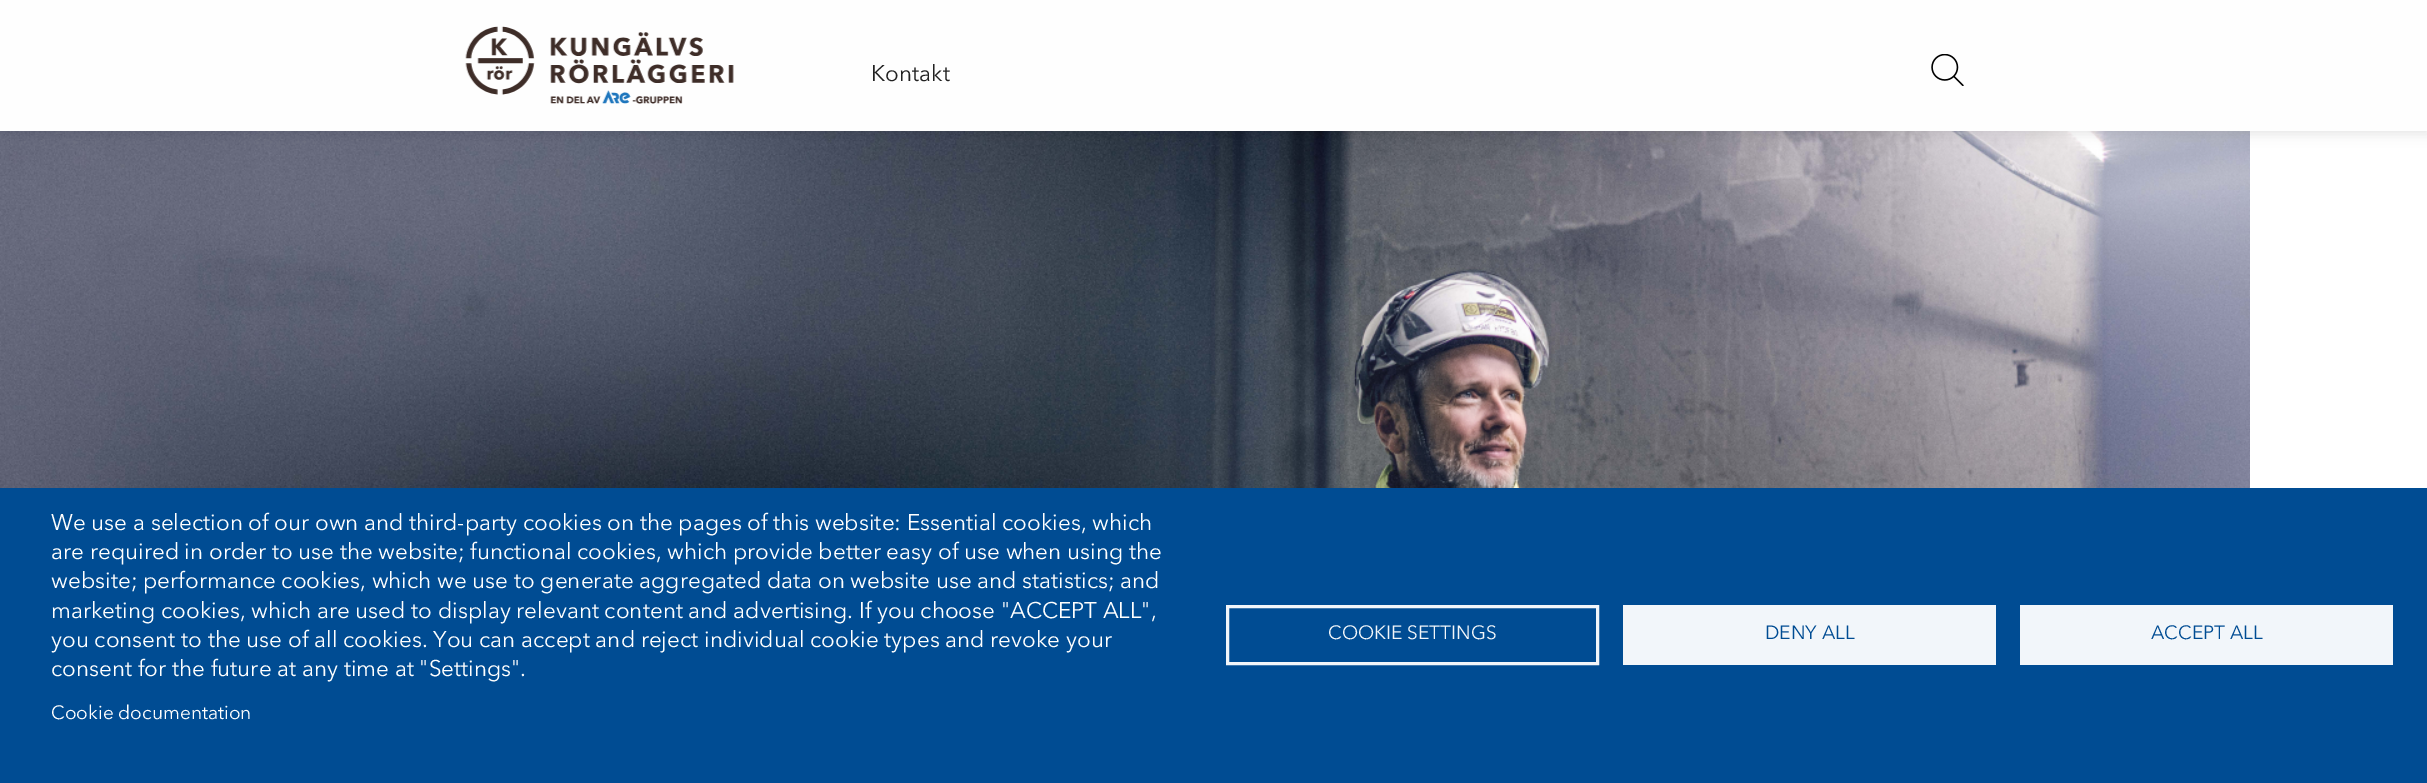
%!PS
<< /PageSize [2427 783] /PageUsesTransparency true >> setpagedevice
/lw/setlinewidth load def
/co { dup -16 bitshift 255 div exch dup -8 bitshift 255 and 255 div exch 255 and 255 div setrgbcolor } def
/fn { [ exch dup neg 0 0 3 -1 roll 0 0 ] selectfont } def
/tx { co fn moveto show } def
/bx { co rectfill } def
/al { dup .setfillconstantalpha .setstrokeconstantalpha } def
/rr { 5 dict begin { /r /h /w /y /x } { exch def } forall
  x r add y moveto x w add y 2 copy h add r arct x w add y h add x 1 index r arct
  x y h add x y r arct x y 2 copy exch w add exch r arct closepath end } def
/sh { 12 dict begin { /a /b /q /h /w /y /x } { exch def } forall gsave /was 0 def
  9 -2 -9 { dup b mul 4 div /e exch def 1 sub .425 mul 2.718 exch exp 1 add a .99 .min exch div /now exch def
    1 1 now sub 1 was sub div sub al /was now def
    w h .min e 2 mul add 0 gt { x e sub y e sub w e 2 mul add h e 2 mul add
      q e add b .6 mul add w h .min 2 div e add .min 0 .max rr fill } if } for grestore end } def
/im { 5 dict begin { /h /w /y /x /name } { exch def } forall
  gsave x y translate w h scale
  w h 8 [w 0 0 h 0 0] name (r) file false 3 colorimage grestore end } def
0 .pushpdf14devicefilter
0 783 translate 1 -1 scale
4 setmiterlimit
0 0 2427 783 16#FFFFFF bx
(media/3.raw) 0 131 2250 357 im
16#000000 co
0 3 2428 131 0 6 .1 sh
0 0 2427 131 16#FEFEFE bx
(media/1.raw) 465 26 269 78 im
(media/2.raw) 1931 54 33 32 im
0 488 2427 295 16#004C93 bx
16#F2F6FA co
3 lw
1227.5 606.5 370 57 rectstroke
1623 605 373 60 16#F2F6FA bx
2020 605 373 60 16#F2F6FA bx
(Kontakt) 871 81 /AvenirNext-Regular 22.5 16#222222 tx
(We use a selection of our own and third-party cookies on the pages of this website: Essential cookies, which) 51 530 /AvenirNext-Regular 22.5 16#FFFFFF tx
(are required in order to use the website; functional cookies, which provide better easy of use when using the) 51 559 /AvenirNext-Regular 22.5 16#FFFFFF tx
(website; performance cookies, which we use to generate aggregated data on website use and statistics; and) 51 588 /AvenirNext-Regular 22.5 16#FFFFFF tx
(marketing cookies, which are used to display relevant content and advertising. If you choose "ACCEPT ALL",) 51 618 /AvenirNext-Regular 22.5 16#FFFFFF tx
(you consent to the use of all cookies. You can accept and reject individual cookie types and revoke your) 51 647 /AvenirNext-Regular 22.5 16#FFFFFF tx
(consent for the future at any time at "Settings".) 51 676 /AvenirNext-Regular 22.5 16#FFFFFF tx
(Cookie documentation) 51 719 /AvenirNext-Regular 19.1 16#FFFFFF tx
(COOKIE SETTINGS) 1328 639 /AvenirNext-Regular 19.1 16#F2F6FA tx
(DENY ALL) 1765 639 /AvenirNext-Regular 19.1 16#004C93 tx
(ACCEPT ALL) 2151 639 /AvenirNext-Regular 19.1 16#004C93 tx
.poppdf14devicefilter showpage
